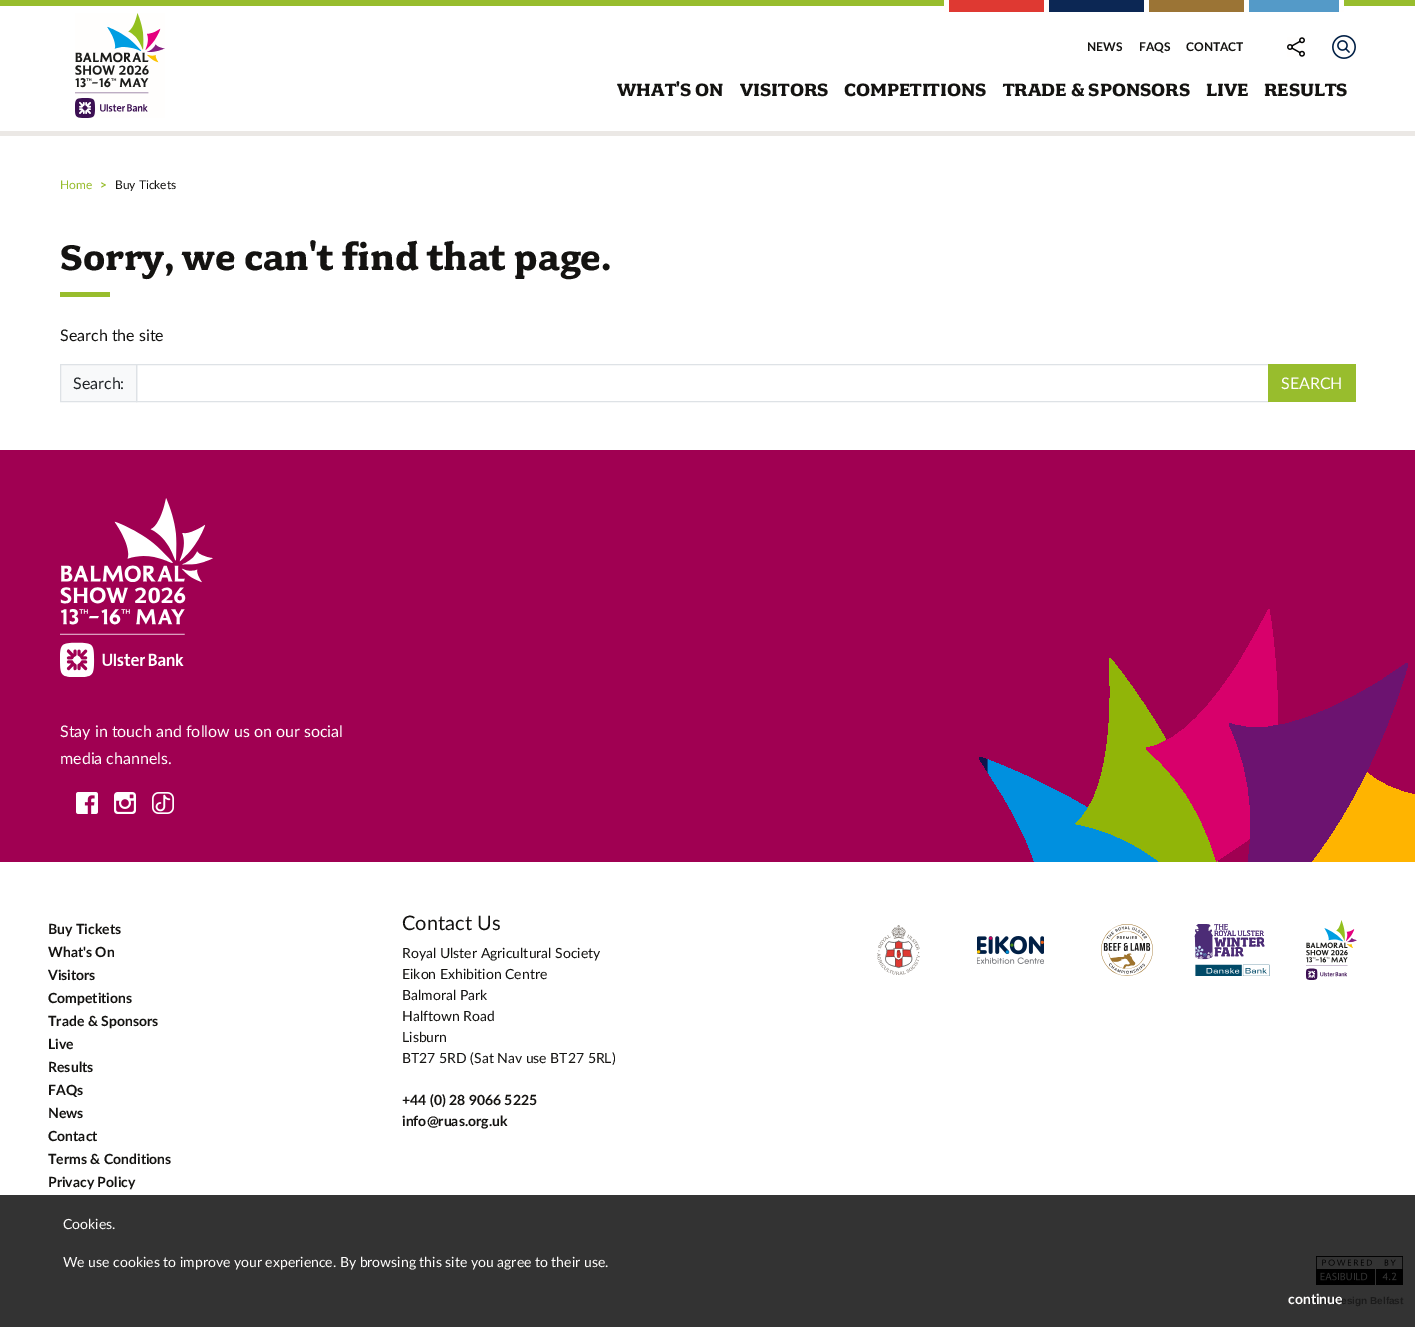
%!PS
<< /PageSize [1415 1327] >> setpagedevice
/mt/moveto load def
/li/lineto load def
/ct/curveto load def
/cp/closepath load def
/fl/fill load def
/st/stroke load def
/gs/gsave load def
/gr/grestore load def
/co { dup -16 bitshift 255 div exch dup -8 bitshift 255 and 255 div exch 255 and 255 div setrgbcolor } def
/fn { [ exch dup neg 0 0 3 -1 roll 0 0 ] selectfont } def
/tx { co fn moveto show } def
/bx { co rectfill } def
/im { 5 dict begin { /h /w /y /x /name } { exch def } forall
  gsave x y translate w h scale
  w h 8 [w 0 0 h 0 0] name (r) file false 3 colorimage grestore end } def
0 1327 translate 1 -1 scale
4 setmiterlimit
0 0 1415 1327 16#FFFFFF bx
0 1195 1415 132 16#333333 bx
0 0 1415 6 16#98BD2D bx
949 0 95 12 16#DF3932 bx
944 0 5 12 16#FFFEFD bx
1049 0 95 12 16#0C2754 bx
1044 0 5 12 16#FFFEFD bx
1149 0 95 12 16#9B7435 bx
1144 0 5 12 16#FFFEFD bx
1249 0 90 12 16#549AC8 bx
1339 0 5 12 16#FFFEFD bx
1244 0 5 12 16#FFFEFD bx
0 131 1415 5 16#EBE8E5 bx
(media/1.raw) 75 13 90 105 im
(media/2.raw) 1287 37 18 20 im
(media/3.raw) 1332 35 24 24 im
60 292 50 5 16#98BD2D bx
16#F8F9FA co
60.5 364.5 mt 136.5 364.5 li 136.5 401.5 li 60.5 401.5 li cp gs fl gr
16#DEE2E6 co
st
136.5 364.5 1132 37 rectstroke
1268 364 88 38 16#98BD2D bx
0 450 1415 412 16#A00052 bx
gs
979 604 436 258 rectclip
gs 979 758 mt 980 757 li 980 757 1106 800 1190 886 ct 1230 927 1246 942 1244 944 ct 1243 946 1226 937 1200 929 ct 1160 915 1100 902 1039 926 ct 1053 887 1022 828 1003 796 ct cp clip newpath
<< /ShadingType 2 /ColorSpace /DeviceRGB /Coords [987 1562 989 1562] /Extend [true true] /Function << /FunctionType 3 /Domain [0 1] /Functions [<< /FunctionType 2 /Domain [0 1] /C0 [.063 .078 .294] /C1 [.063 .078 .294] /N 1 >> << /FunctionType 2 /Domain [0 1] /C0 [.063 .078 .294] /C1 [.051 .145 .376] /N 1 >> << /FunctionType 2 /Domain [0 1] /C0 [.051 .145 .376] /C1 [.035 .275 .529] /N 1 >> << /FunctionType 2 /Domain [0 1] /C0 [.035 .275 .529] /C1 [.024 .38 .651] /N 1 >> << /FunctionType 2 /Domain [0 1] /C0 [.024 .38 .651] /C1 [.012 .459 .749] /N 1 >> << /FunctionType 2 /Domain [0 1] /C0 [.012 .459 .749] /C1 [.004 .518 .82] /N 1 >> << /FunctionType 2 /Domain [0 1] /C0 [.004 .518 .82] /C1 [0 .553 .859] /N 1 >> << /FunctionType 2 /Domain [0 1] /C0 [0 .553 .859] /C1 [0 .565 .875] /N 1 >> << /FunctionType 2 /Domain [0 1] /C0 [0 .565 .875] /C1 [0 .565 .875] /N 1 >>] /Bounds [.06 .12 .24 .36 .49 .62 .76 .92] /Encode [0 1 0 1 0 1 0 1 0 1 0 1 0 1 0 1 0 1] >> >> shfill gr
gs 1109 658 mt 1110 658 li 1110 658 1192 755 1218 866 ct 1231 918 1236 938 1233 939 ct 1228 942 1178 842 1076 824 ct 1075 824 li 1117 790 1110 675 1109 659 ct cp clip newpath
<< /ShadingType 2 /ColorSpace /DeviceRGB /Coords [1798 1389 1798 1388] /Extend [true true] /Function << /FunctionType 3 /Domain [0 1] /Functions [<< /FunctionType 2 /Domain [0 1] /C0 [0 .282 .102] /C1 [0 .282 .102] /N 1 >> << /FunctionType 2 /Domain [0 1] /C0 [0 .282 .102] /C1 [.067 .333 .09] /N 1 >> << /FunctionType 2 /Domain [0 1] /C0 [.067 .333 .09] /C1 [.22 .447 .071] /N 1 >> << /FunctionType 2 /Domain [0 1] /C0 [.22 .447 .071] /C1 [.345 .541 .059] /N 1 >> << /FunctionType 2 /Domain [0 1] /C0 [.345 .541 .059] /C1 [.443 .616 .043] /N 1 >> << /FunctionType 2 /Domain [0 1] /C0 [.443 .616 .043] /C1 [.514 .667 .035] /N 1 >> << /FunctionType 2 /Domain [0 1] /C0 [.514 .667 .035] /C1 [.553 .698 .031] /N 1 >> << /FunctionType 2 /Domain [0 1] /C0 [.553 .698 .031] /C1 [.569 .71 .031] /N 1 >> << /FunctionType 2 /Domain [0 1] /C0 [.569 .71 .031] /C1 [.569 .71 .031] /N 1 >>] /Bounds [.12 .16 .27 .37 .49 .6 .73 .87] /Encode [0 1 0 1 0 1 0 1 0 1 0 1 0 1 0 1 0 1] >> >> shfill gr
gs 1238 664 mt 1249 646 1259 628 1269 609 ct 1268 609 li 1269 609 li 1269 609 1294 746 1259 866 ct 1242 923 1236 945 1233 944 ct 1226 944 1234 822 1146 749 ct 1146 748 li 1181 743 1215 700 1238 664 ct cp clip newpath
<< /ShadingType 2 /ColorSpace /DeviceRGB /Coords [1187 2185 1189 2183] /Extend [true true] /Function << /FunctionType 3 /Domain [0 1] /Functions [<< /FunctionType 2 /Domain [0 1] /C0 [.251 0 .031] /C1 [.251 0 .031] /N 1 >> << /FunctionType 2 /Domain [0 1] /C0 [.251 0 .031] /C1 [.282 0 .051] /N 1 >> << /FunctionType 2 /Domain [0 1] /C0 [.282 0 .051] /C1 [.431 0 .149] /N 1 >> << /FunctionType 2 /Domain [0 1] /C0 [.431 0 .149] /C1 [.561 0 .231] /N 1 >> << /FunctionType 2 /Domain [0 1] /C0 [.561 0 .231] /C1 [.663 0 .298] /N 1 >> << /FunctionType 2 /Domain [0 1] /C0 [.663 0 .298] /C1 [.745 0 .353] /N 1 >> << /FunctionType 2 /Domain [0 1] /C0 [.745 0 .353] /C1 [.8 0 .388] /N 1 >> << /FunctionType 2 /Domain [0 1] /C0 [.8 0 .388] /C1 [.835 0 .412] /N 1 >> << /FunctionType 2 /Domain [0 1] /C0 [.835 0 .412] /C1 [.847 0 .42] /N 1 >> << /FunctionType 2 /Domain [0 1] /C0 [.847 0 .42] /C1 [.847 0 .42] /N 1 >>] /Bounds [.08 .09 .14 .19 .25 .31 .38 .47 .6] /Encode [0 1 0 1 0 1 0 1 0 1 0 1 0 1 0 1 0 1 0 1] >> >> shfill gr
gs 1294 935 mt 1218 954 li 1218 954 1209 956 1208 955 ct 1207 953 1220 944 1222 942 ct 1276 902 1324 855 1349 791 ct 1358 763 li 1395 817 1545 801 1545 801 ct 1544 801 li 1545 802 li 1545 802 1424 901 1294 935 ct cp clip newpath
<< /ShadingType 2 /ColorSpace /DeviceRGB /Coords [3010 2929 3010 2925] /Extend [true true] /Function << /FunctionType 3 /Domain [0 1] /Functions [<< /FunctionType 2 /Domain [0 1] /C0 [.784 .235 0] /C1 [.784 .235 0] /N 1 >> << /FunctionType 2 /Domain [0 1] /C0 [.784 .235 0] /C1 [.792 .255 0] /N 1 >> << /FunctionType 2 /Domain [0 1] /C0 [.792 .255 0] /C1 [.855 .392 0] /N 1 >> << /FunctionType 2 /Domain [0 1] /C0 [.855 .392 0] /C1 [.906 .506 0] /N 1 >> << /FunctionType 2 /Domain [0 1] /C0 [.906 .506 0] /C1 [.949 .592 0] /N 1 >> << /FunctionType 2 /Domain [0 1] /C0 [.949 .592 0] /C1 [.976 .655 0] /N 1 >> << /FunctionType 2 /Domain [0 1] /C0 [.976 .655 0] /C1 [.992 .694 0] /N 1 >> << /FunctionType 2 /Domain [0 1] /C0 [.992 .694 0] /C1 [1 .706 0] /N 1 >> << /FunctionType 2 /Domain [0 1] /C0 [1 .706 0] /C1 [1 .706 0] /N 1 >>] /Bounds [.16 .17 .2 .24 .28 .32 .37 .44] /Encode [0 1 0 1 0 1 0 1 0 1 0 1 0 1 0 1 0 1] >> >> shfill gr
gs 1229 724 mt 1229 723 li 1275 741 1343 704 1382 680 ct 1407 663 li 1408 664 li 1408 664 1372 801 1286 891 ct 1245 933 1230 950 1228 948 ct 1221 944 1282 837 1229 724 ct cp clip newpath
<< /ShadingType 2 /ColorSpace /DeviceRGB /Coords [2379 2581 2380 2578] /Extend [true true] /Function << /FunctionType 3 /Domain [0 1] /Functions [<< /FunctionType 2 /Domain [0 1] /C0 [.051 .043 .114] /C1 [.051 .043 .114] /N 1 >> << /FunctionType 2 /Domain [0 1] /C0 [.051 .043 .114] /C1 [.106 .047 .161] /N 1 >> << /FunctionType 2 /Domain [0 1] /C0 [.106 .047 .161] /C1 [.22 .055 .263] /N 1 >> << /FunctionType 2 /Domain [0 1] /C0 [.22 .055 .263] /C1 [.31 .063 .337] /N 1 >> << /FunctionType 2 /Domain [0 1] /C0 [.31 .063 .337] /C1 [.373 .067 .396] /N 1 >> << /FunctionType 2 /Domain [0 1] /C0 [.373 .067 .396] /C1 [.412 .071 .427] /N 1 >> << /FunctionType 2 /Domain [0 1] /C0 [.412 .071 .427] /C1 [.424 .075 .439] /N 1 >>] /Bounds [.04 .1 .24 .4 .56 .75] /Encode [0 1 0 1 0 1 0 1 0 1 0 1 0 1] >> >> shfill gr
gr
(media/4.raw) 60 498 153 179 im
(media/5.raw) 76 792 22 22 im
(media/6.raw) 114 792 22 22 im
(media/7.raw) 152 792 22 22 im
(media/8.raw) 877 925 43 50 im
(media/9.raw) 977 936 67 28 im
(media/10.raw) 1101 924 52 52 im
(media/11.raw) 1194 924 76 52 im
(media/12.raw) 1306 920 51 60 im
(media/13.raw) 1316 1256 87 29 im
(NEWS) 1087 51 /Lato-Bold 12 16#141311 tx
(FAQS) 1139 51 /Lato-Bold 12 16#141311 tx
(CONTACT) 1186 51 /Lato-Bold 12 16#141311 tx
(WHAT'S ON) 617 96 /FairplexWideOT-Bold 20 16#141311 tx
(VISITORS) 740 96 /FairplexWideOT-Bold 20 16#141311 tx
(COMPETITIONS) 844 96 /FairplexWideOT-Bold 20 16#141311 tx
(TRADE & SPONSORS) 1003 96 /FairplexWideOT-Bold 20 16#141311 tx
(LIVE) 1206 96 /FairplexWideOT-Bold 20 16#141311 tx
(RESULTS) 1264 96 /FairplexWideOT-Bold 20 16#141311 tx
(Home) 60 189 /Lato-Regular 12 16#98BD2D tx
(>) 100 189 /Lato-Bold 12 16#98BD2D tx
(Buy Tickets) 115 189 /Lato-Regular 12 16#141311 tx
(Sorry, we can't find that page.) 60 270 /FairplexWideOT-Bold 40 16#141311 tx
(Search the site) 60 341 /Lato-Regular 16 16#141311 tx
(Search:) 73 389 /Lato-Regular 16 16#212529 tx
(SEARCH) 1281 389 /Lato-Regular 16 16#FFFEFD tx
(Stay in touch and follow us on our social) 60 737 /Lato-Regular 16 16#FFFEFD tx
(media channels.) 60 764 /Lato-Regular 16 16#FFFEFD tx
(Buy Tickets) 48 934 /Lato-Bold 14 16#141311 tx
(What's On) 48 957 /Lato-Bold 14 16#141311 tx
(Visitors) 48 980 /Lato-Bold 14 16#141311 tx
(Competitions) 48 1003 /Lato-Bold 14 16#141311 tx
(Trade & Sponsors) 48 1026 /Lato-Bold 14 16#141311 tx
(Live) 48 1049 /Lato-Bold 14 16#141311 tx
(Results) 48 1072 /Lato-Bold 14 16#141311 tx
(FAQs) 48 1095 /Lato-Bold 14 16#141311 tx
(News) 48 1118 /Lato-Bold 14 16#141311 tx
(Contact) 48 1141 /Lato-Bold 14 16#141311 tx
(Terms & Conditions) 48 1164 /Lato-Bold 14 16#141311 tx
(Privacy Policy) 48 1187 /Lato-Bold 14 16#141311 tx
(Contact Us) 402 930 /Lato-Regular 20 16#141311 tx
(Royal Ulster Agricultural Society) 402 958 /Lato-Regular 14 16#141311 tx
(Eikon Exhibition Centre) 402 979 /Lato-Regular 14 16#141311 tx
(Balmoral Park) 402 1000 /Lato-Regular 14 16#141311 tx
(Halftown Road) 402 1021 /Lato-Regular 14 16#141311 tx
(Lisburn) 402 1042 /Lato-Regular 14 16#141311 tx
(BT27 5RD \(Sat Nav use BT27 5RL\)) 402 1063 /Lato-Regular 14 16#141311 tx
(+44 \(0\) 28 9066 5225) 402 1105 /Lato-Bold 14 16#141311 tx
(info@ruas.org.uk) 402 1126 /Lato-Bold 14 16#141311 tx
(Web Design Belfast) 1310 1304 /LiberationSans-Bold 10 16#1B1B1B tx
(Cookies.) 63 1229 /Lato-Regular 14 16#FFFEFD tx
(We use cookies to improve your experience. By browsing this site you agree to their use.) 63 1267 /Lato-Regular 14 16#FFFEFD tx
(continue) 1288 1304 /Lato-Bold 14 16#FFFEFD tx
showpage
